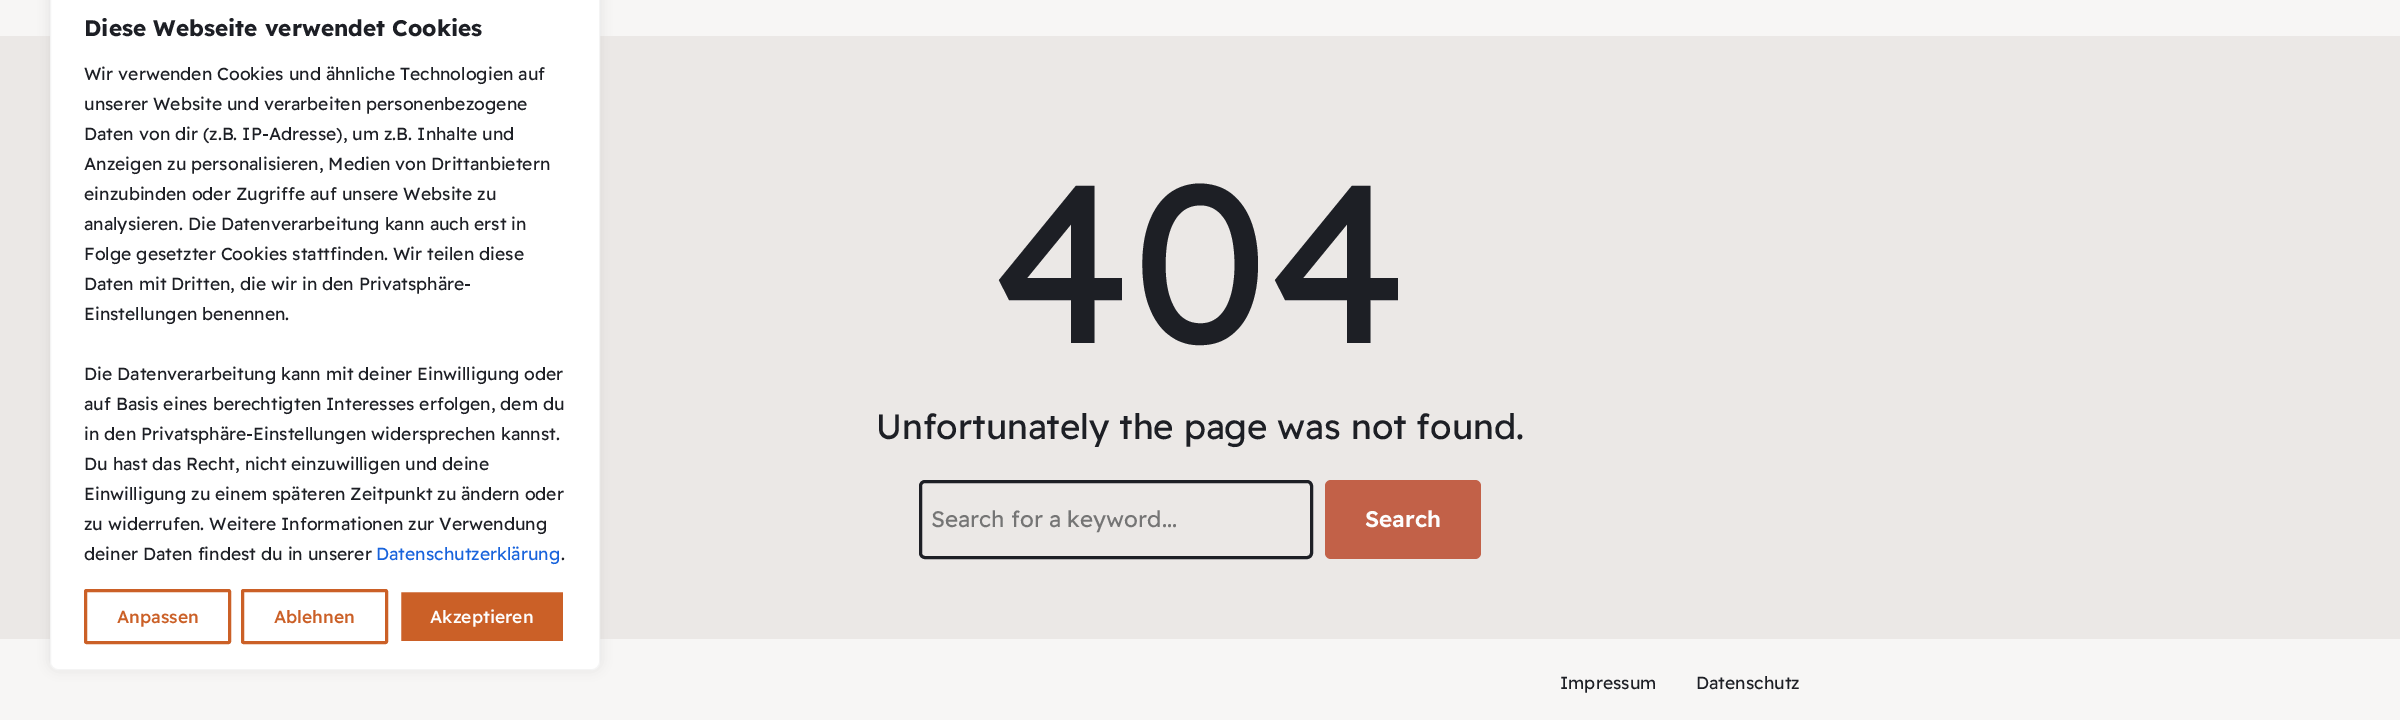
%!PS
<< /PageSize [2400 720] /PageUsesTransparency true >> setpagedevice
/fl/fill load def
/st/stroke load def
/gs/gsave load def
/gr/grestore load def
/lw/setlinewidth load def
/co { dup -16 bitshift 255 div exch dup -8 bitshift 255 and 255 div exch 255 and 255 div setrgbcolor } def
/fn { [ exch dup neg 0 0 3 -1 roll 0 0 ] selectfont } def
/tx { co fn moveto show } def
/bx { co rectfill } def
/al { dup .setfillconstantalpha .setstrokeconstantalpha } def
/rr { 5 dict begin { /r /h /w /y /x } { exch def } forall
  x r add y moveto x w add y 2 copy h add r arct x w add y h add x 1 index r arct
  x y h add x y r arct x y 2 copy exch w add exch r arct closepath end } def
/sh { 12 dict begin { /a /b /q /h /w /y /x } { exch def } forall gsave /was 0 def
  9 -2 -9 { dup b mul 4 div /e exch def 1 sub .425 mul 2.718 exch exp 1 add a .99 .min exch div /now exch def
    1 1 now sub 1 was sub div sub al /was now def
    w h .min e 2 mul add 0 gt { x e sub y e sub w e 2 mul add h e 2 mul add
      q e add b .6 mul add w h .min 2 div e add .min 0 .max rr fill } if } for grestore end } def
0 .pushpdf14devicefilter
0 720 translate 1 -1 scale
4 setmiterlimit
0 0 2400 720 16#EBE8E6 bx
0 0 2400 36 16#F7F6F5 bx
0 639 2400 81 16#F7F6F5 bx
16#ACABAB co
50 -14 550 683 8 6 .3 sh
16#FFFFFF co
50.5 -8.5 549 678 7.5 rr gs fl gr
16#F4F4F4 co
st
16#CB6027 co
3 lw
85.5 590.5 144 52 1 rr st
242.5 590.5 144 52 1 rr st
399.5 590.5 165 52 1 rr gs fl gr
16#FFFFFF co
st
16#1D1F25 co
920.5 481.5 391 76 4.5 rr st
16#C26148 co
1325 480 156 79 6 rr fl
(Diese Webseite verwendet Cookies) 84 36 /ReadexPro-Bold 22.5 16#1D1F25 tx
(Wir verwenden Cookies und ähnliche Technologien auf) 84 80 /ReadexPro-Regular 17.5 16#1D1F25 tx
(unserer Website und verarbeiten personenbezogene) 84 110 /ReadexPro-Regular 17.5 16#1D1F25 tx
(Daten von dir \(z.B. IP-Adresse\), um z.B. Inhalte und) 84 140 /ReadexPro-Regular 17.5 16#1D1F25 tx
(Anzeigen zu personalisieren, Medien von Drittanbietern) 84 170 /ReadexPro-Regular 17.5 16#1D1F25 tx
(einzubinden oder Zugriffe auf unsere Website zu) 84 200 /ReadexPro-Regular 17.5 16#1D1F25 tx
(analysieren. Die Datenverarbeitung kann auch erst in) 84 230 /ReadexPro-Regular 17.5 16#1D1F25 tx
(Folge gesetzter Cookies stattfinden. Wir teilen diese) 84 260 /ReadexPro-Regular 17.5 16#1D1F25 tx
(Daten mit Dritten, die wir in den Privatsphäre-) 84 290 /ReadexPro-Regular 17.5 16#1D1F25 tx
(Einstellungen benennen.) 84 320 /ReadexPro-Regular 17.5 16#1D1F25 tx
(Die Datenverarbeitung kann mit deiner Einwilligung oder) 84 380 /ReadexPro-Regular 17.5 16#1D1F25 tx
(auf Basis eines berechtigten Interesses erfolgen, dem du) 84 410 /ReadexPro-Regular 17.5 16#1D1F25 tx
(in den Privatsphäre-Einstellungen widersprechen kannst.) 84 440 /ReadexPro-Regular 17.5 16#1D1F25 tx
(Du hast das Recht, nicht einzuwilligen und deine) 84 470 /ReadexPro-Regular 17.5 16#1D1F25 tx
(Einwilligung zu einem späteren Zeitpunkt zu ändern oder) 84 500 /ReadexPro-Regular 17.5 16#1D1F25 tx
(zu widerrufen. Weitere Informationen zur Verwendung) 84 530 /ReadexPro-Regular 17.5 16#1D1F25 tx
(deiner Daten findest du in unserer) 84 560 /ReadexPro-Regular 17.5 16#1D1F25 tx
(Datenschutzerklärung) 376 560 /ReadexPro-Regular 17.5 16#1863DC tx
(.) 561 560 /ReadexPro-Regular 17.5 16#1D1F25 tx
(Anpassen) 117 623 /ReadexPro-Medium 17.5 16#CB6027 tx
(Ablehnen) 274 623 /ReadexPro-Medium 17.5 16#CB6027 tx
(Akzeptieren) 430 623 /ReadexPro-Medium 17.5 16#FDFDFD tx
(404) 992 343 /ReadexPro-Regular 225 16#1D1F25 tx
(Unfortunately the page was not found.) 876 439 /ReadexPro-Regular 35 16#1D1F25 tx
(Search for a keyword...) 931 527 /ReadexPro-Regular 22.5 16#757575 tx
(Search) 1365 527 /ReadexPro-SemiBold 22.5 16#FDFDFD tx
(Impressum) 1560 689 /ReadexPro-Regular 17.5 16#1D1F25 tx
(Datenschutz) 1696 689 /ReadexPro-Regular 17.5 16#1D1F25 tx
.poppdf14devicefilter showpage
